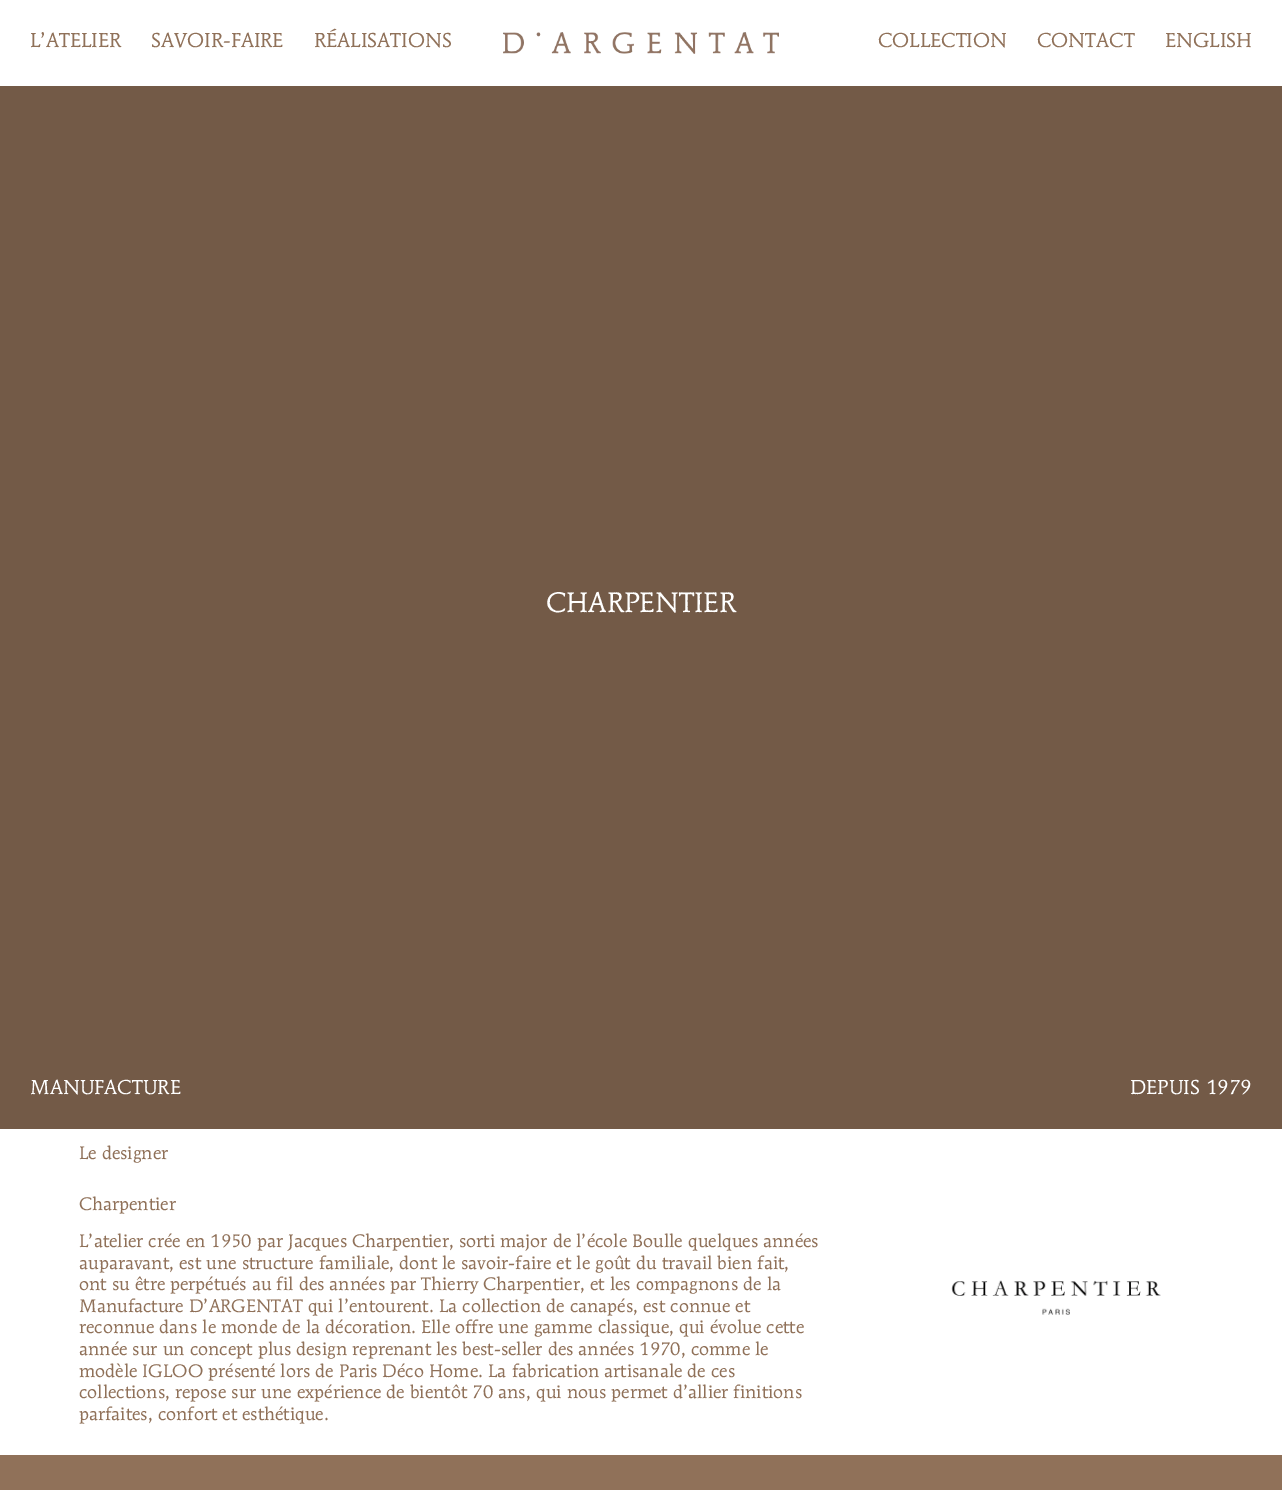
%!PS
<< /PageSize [1282 1490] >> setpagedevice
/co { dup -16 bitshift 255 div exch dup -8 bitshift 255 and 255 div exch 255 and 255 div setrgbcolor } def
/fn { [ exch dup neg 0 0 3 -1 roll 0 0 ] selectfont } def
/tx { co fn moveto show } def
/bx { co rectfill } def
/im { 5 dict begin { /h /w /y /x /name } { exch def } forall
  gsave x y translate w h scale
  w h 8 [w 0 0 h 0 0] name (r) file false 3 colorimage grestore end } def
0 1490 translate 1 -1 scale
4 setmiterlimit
0 0 1282 1490 16#FFFFFF bx
(media/1.raw) 503 32 276 22 im
0 86 1282 1043 16#735A47 bx
(media/2.raw) 951 1280 210 35 im
0 1455 1282 35 16#907159 bx
(L’ATELIER) 30 47 /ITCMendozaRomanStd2-Regular 20 16#907159 tx
(SAVOIR-FAIRE) 151 47 /ITCMendozaRomanStd2-Regular 20 16#907159 tx
(RÉALISATIONS) 314 47 /ITCMendozaRomanStd2-Regular 20 16#907159 tx
(COLLECTION) 878 47 /ITCMendozaRomanStd2-Regular 20 16#907159 tx
(CONTACT) 1037 47 /ITCMendozaRomanStd2-Regular 20 16#907159 tx
(ENGLISH) 1165 47 /ITCMendozaRomanStd2-Regular 20 16#907159 tx
(CHARPENTIER) 546 612 /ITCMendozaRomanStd-Regular 28 16#FFFFFF tx
(MANUFACTURE) 30 1094 /ITCMendozaRomanStd-Regular 20 16#FFFFFF tx
(DEPUIS 1979) 1130 1094 /ITCMendozaRomanStd-Regular 20 16#FFFFFF tx
(Le designer) 79 1159 /ITCMendozaRomanStd2-Regular 18 16#907159 tx
(Charpentier) 79 1210 /ITCMendozaRomanStd2-Regular 18 16#907159 tx
(L’atelier crée en 1950 par Jacques Charpentier, sorti major de l’école Boulle quelques années) 79 1247 /ITCMendozaRomanStd2-Regular 18 16#907159 tx
(auparavant, est une structure familiale, dont le savoir-faire et le goût du travail bien fait,) 79 1269 /ITCMendozaRomanStd2-Regular 18 16#907159 tx
(ont su être perpétués au fil des années par Thierry Charpentier, et les compagnons de la) 79 1290 /ITCMendozaRomanStd2-Regular 18 16#907159 tx
(Manufacture D’ARGENTAT qui l’entourent. La collection de canapés, est connue et) 79 1312 /ITCMendozaRomanStd2-Regular 18 16#907159 tx
(reconnue dans le monde de la décoration. Elle offre une gamme classique, qui évolue cette) 79 1333 /ITCMendozaRomanStd2-Regular 18 16#907159 tx
(année sur un concept plus design reprenant les best-seller des années 1970, comme le) 79 1355 /ITCMendozaRomanStd2-Regular 18 16#907159 tx
(modèle IGLOO présenté lors de Paris Déco Home. La fabrication artisanale de ces) 79 1377 /ITCMendozaRomanStd2-Regular 18 16#907159 tx
(collections, repose sur une expérience de bientôt 70 ans, qui nous permet d’allier finitions) 79 1398 /ITCMendozaRomanStd2-Regular 18 16#907159 tx
(parfaites, confort et esthétique.) 79 1420 /ITCMendozaRomanStd2-Regular 18 16#907159 tx
showpage
